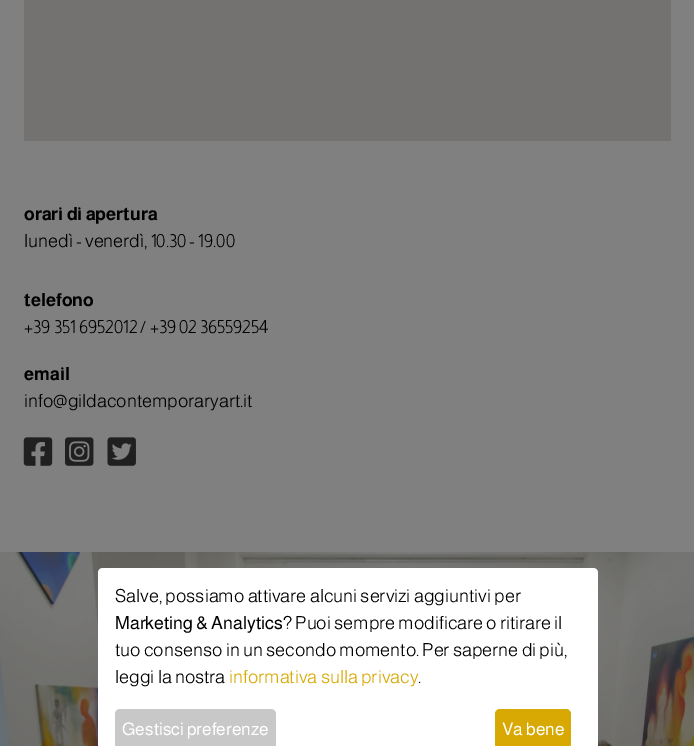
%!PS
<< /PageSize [694 746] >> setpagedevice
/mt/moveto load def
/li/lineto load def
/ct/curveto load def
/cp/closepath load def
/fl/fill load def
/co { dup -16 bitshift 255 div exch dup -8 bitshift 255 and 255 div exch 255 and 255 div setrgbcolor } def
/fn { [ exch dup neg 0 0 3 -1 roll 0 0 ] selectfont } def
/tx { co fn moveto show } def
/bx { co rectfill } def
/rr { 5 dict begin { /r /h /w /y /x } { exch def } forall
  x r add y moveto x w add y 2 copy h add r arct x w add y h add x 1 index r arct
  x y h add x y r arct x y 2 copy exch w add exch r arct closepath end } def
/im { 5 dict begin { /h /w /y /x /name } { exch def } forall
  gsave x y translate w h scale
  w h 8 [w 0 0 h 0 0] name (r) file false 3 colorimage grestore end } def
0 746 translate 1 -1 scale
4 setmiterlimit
0 0 694 746 16#808080 bx
24 0 647 141 16#737270 bx
(media/1.raw) 23 437 30 29 im
(media/2.raw) 65 437 29 29 im
(media/3.raw) 107 437 29 29 im
(media/4.raw) 0 552 694 194 im
16#FFFFFF co
103 568 mt 593 568 li 596 568 598 570 598 573 ct 598 746 li 98 746 li 98 573 li 98 570 100 568 103 568 ct cp fl
16#C8C8C8 co
115 709 161 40 5 rr fl
16#D8A903 co
495 709 76 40 5 rr fl
(orari di apertura) 24 220 /Almarai-Bold 18 16#000000 tx
(lunedì - venerdì, 10.30 - 19.00) 24 247 /Almarai-Light 18 16#000000 tx
(telefono) 24 306 /Almarai-Bold 18 16#000000 tx
(+39 351 6952012 / +39 02 36559254) 24 333 /Almarai-Light 18 16#000000 tx
(email) 24 380 /Almarai-Bold 18 16#000000 tx
(info@gildacontemporaryart.it) 24 407 /Almarai-Light 18 16#000000 tx
(Salve, possiamo attivare alcuni servizi aggiuntivi per) 115 602 /Almarai-Light 18 16#000000 tx
(Marketing & Analytics) 115 629 /Almarai-Regular 18 16#000000 tx
(? Puoi sempre modificare o ritirare il) 283 629 /Almarai-Light 18 16#000000 tx
(tuo consenso in un secondo momento. Per saperne di più,) 115 656 /Almarai-Light 18 16#000000 tx
(leggi la nostra) 115 683 /Almarai-Light 18 16#000000 tx
(informativa sulla privacy) 229 683 /Almarai-Light 18 16#D8A903 tx
(.) 418 683 /Almarai-Light 18 16#000000 tx
(Gestisci preferenze) 122 735 /Almarai-Regular 17.5 16#FFFFFF tx
(Va bene) 502 735 /Almarai-Regular 17.5 16#FFFFFF tx
showpage
